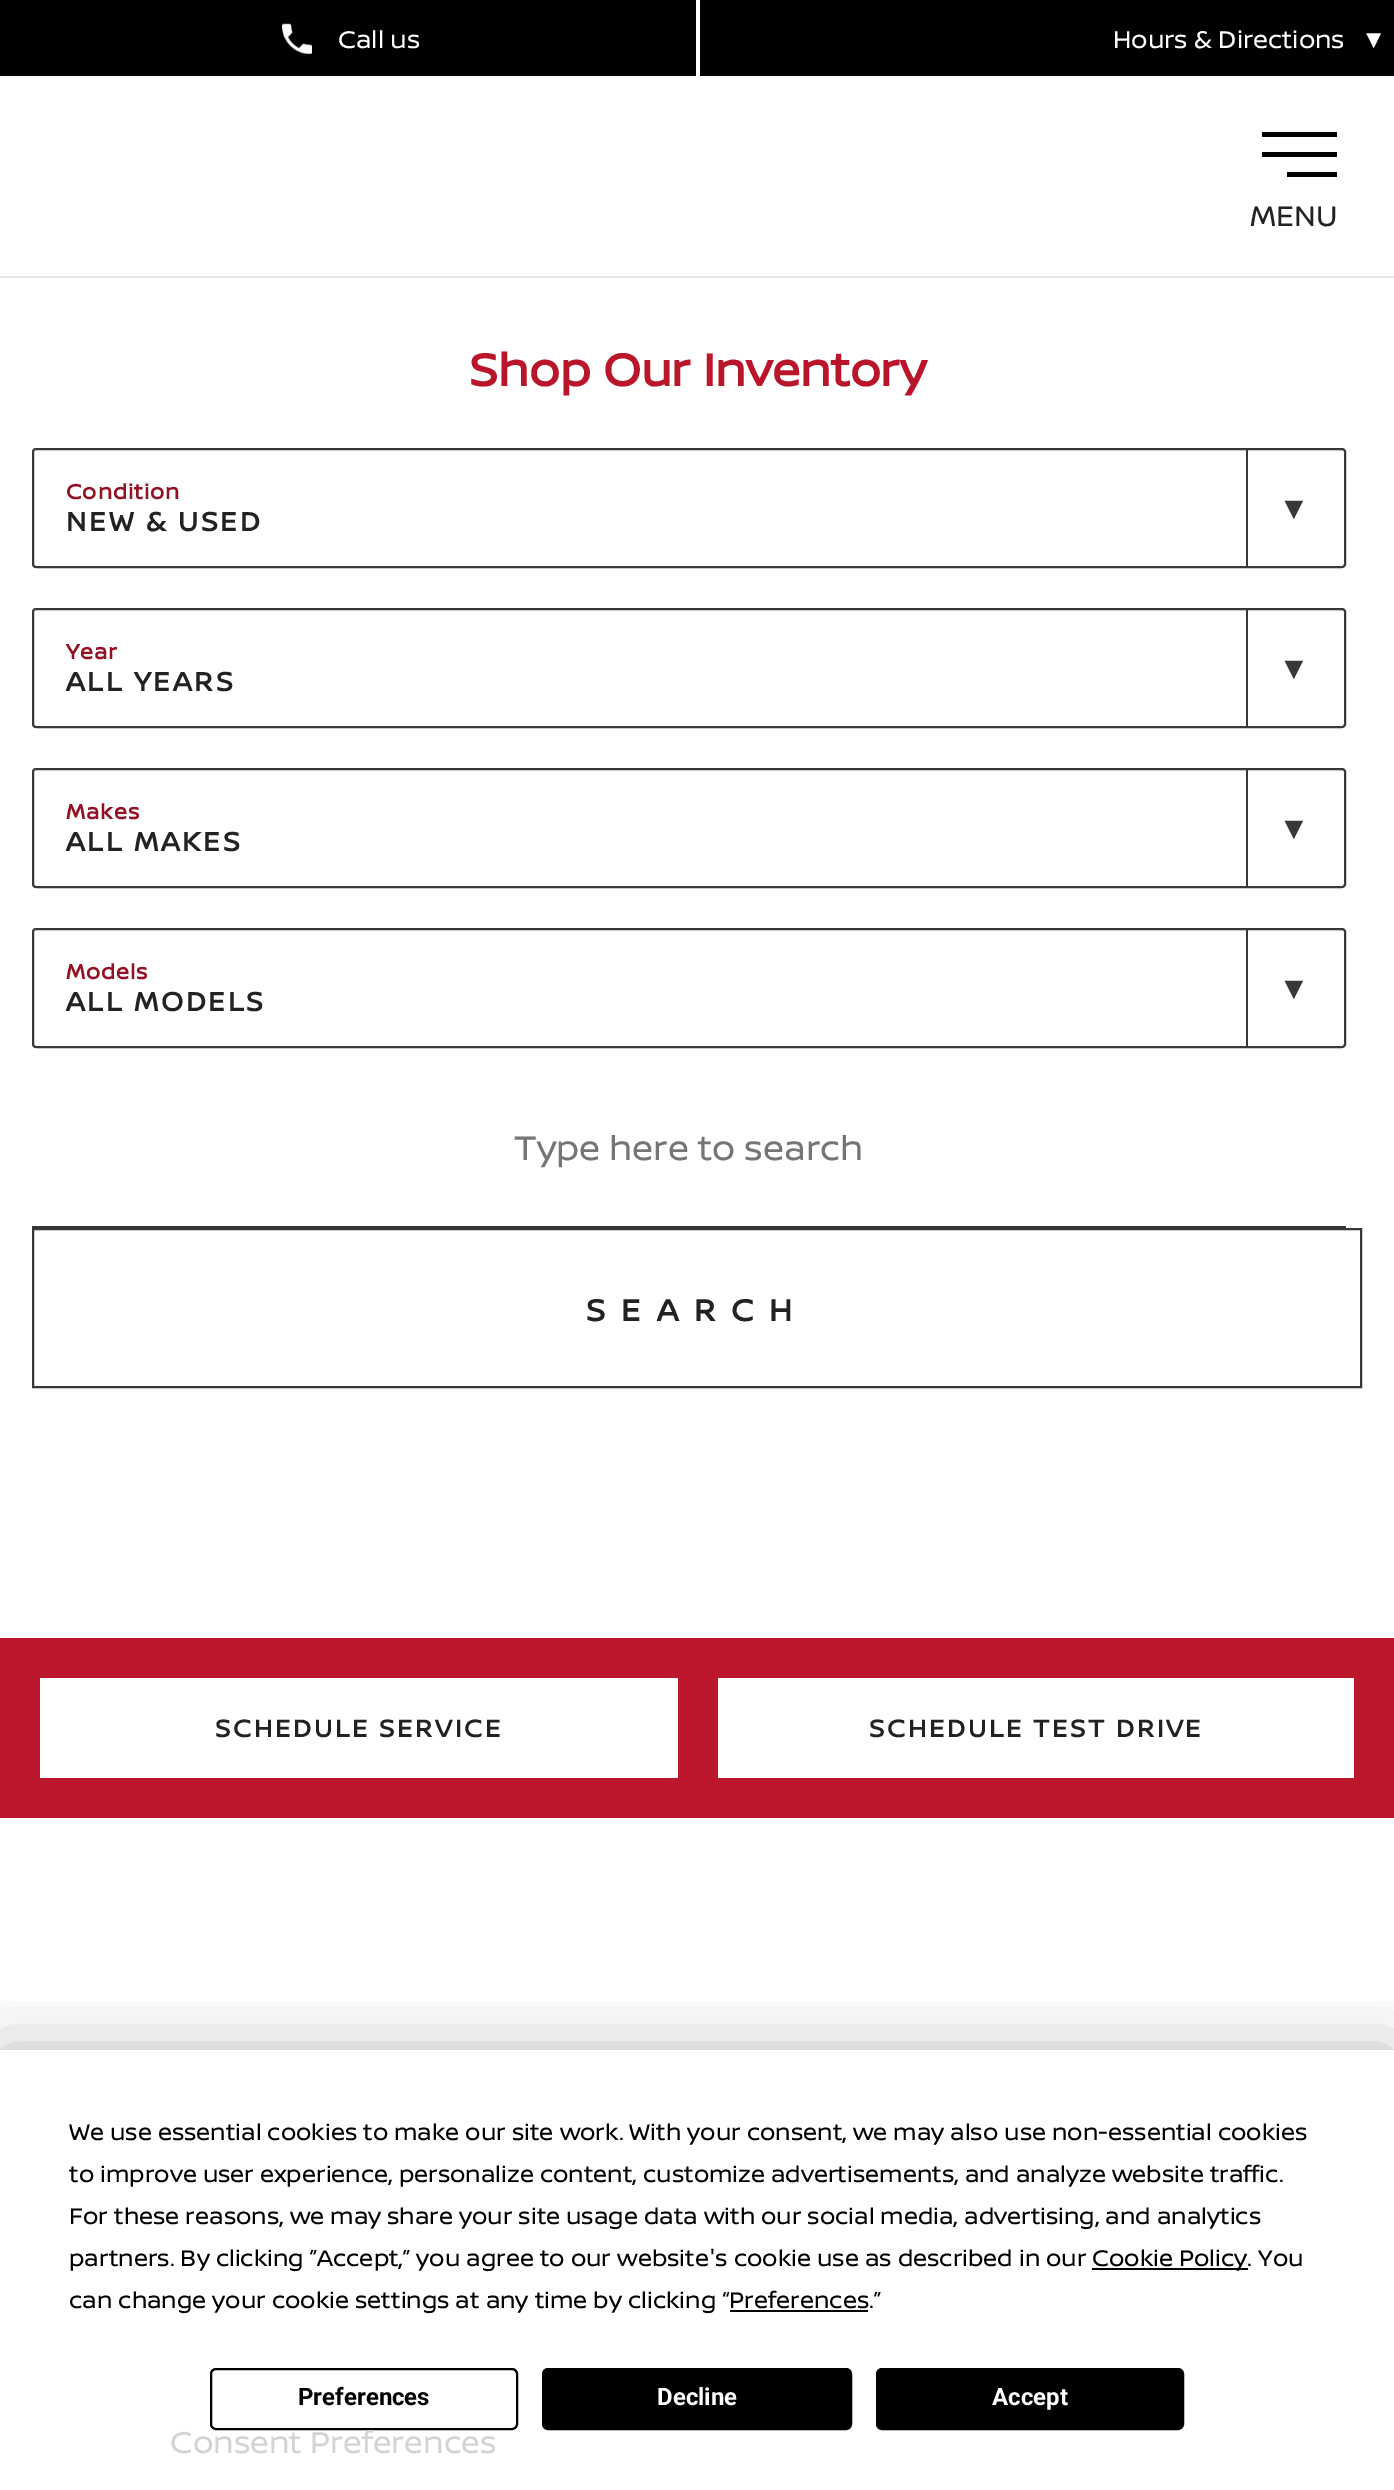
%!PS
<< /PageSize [1394 2490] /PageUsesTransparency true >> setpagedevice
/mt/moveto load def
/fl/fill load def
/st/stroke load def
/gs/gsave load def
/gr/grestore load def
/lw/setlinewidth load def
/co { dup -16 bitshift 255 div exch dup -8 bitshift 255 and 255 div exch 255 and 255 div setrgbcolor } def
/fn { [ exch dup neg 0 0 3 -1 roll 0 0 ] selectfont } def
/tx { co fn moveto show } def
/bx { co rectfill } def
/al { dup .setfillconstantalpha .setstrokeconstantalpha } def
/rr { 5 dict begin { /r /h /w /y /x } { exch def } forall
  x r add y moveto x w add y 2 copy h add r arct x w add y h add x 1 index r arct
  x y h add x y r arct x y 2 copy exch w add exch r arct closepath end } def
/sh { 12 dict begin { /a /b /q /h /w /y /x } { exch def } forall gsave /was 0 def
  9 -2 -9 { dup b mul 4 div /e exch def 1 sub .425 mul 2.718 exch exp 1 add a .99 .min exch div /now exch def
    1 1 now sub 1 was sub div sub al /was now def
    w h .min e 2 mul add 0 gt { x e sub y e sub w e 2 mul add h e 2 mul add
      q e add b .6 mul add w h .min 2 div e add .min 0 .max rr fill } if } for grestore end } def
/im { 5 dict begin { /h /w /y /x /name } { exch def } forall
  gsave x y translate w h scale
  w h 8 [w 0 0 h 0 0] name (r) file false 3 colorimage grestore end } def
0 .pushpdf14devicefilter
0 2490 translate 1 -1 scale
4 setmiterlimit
0 0 1394 2490 16#FFFFFF bx
0 0 1394 76 16#000000 bx
696 0 4 76 16#FFFFFF bx
(media/1.raw) 282 23 30 31 im
0 276 1394 2 16#E6E6E6 bx
1262 152 75 5 16#000000 bx
1287 172 50 5 16#000000 bx
1262 132 75 5 16#000000 bx
16#383838 co
2 lw
33 449 1312 118 3 rr st
1246 450 2 116 16#383838 bx
33 609 1312 118 3 rr st
1246 610 2 116 16#383838 bx
33 769 1312 118 3 rr st
1246 770 2 116 16#383838 bx
33 929 1312 118 3 rr st
1246 930 2 116 16#383838 bx
32 1226 1314 2 16#383838 bx
33 1229 1328 158 rectstroke
0 1638 1394 180 16#BB162B bx
40 1678 638 100 16#FFFFFF bx
718 1678 636 100 16#FFFFFF bx
gs
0 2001 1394 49 rectclip
16#000000 co
0 2050 1394 440 0 35 .25 sh
gr
1092 2268 156 2 16#000000 bx
730 2310 138 2 16#000000 bx
211 2369 306 60 5 rr st
543 2369 308 60 5 rr gs fl gr
st
877 2369 306 60 5 rr gs fl gr
st
(Call us) 338 48 /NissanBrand-Regular 25.6 16#FFFFFF tx
(Hours & Directions) 1113 48 /NissanBrand-Regular 25.6 16#FFFFFF tx
(▼) 1361 48 /LiberationSans-Regular 25.6 16#FFFFFF tx
(MENU) 1250 226 /NissanBrand-Regular 30 16#222222 tx
(Shop Our Inventory) 469 386 /NissanBrand-Bold 48 16#BA162B tx
/NissanBrand-Bold 22 fn
16#941123 co
66 499 mt 1 0 (Condition) ashow
(▼) 1278 519 /LiberationSans-Regular 32 16#383838 tx
/NissanBrand-Bold 28 fn
16#222222 co
66 531 mt 2.75 0 (NEW & USED) ashow
/NissanBrand-Bold 22 fn
16#941123 co
66 659 mt 1 0 (Year) ashow
(▼) 1278 679 /LiberationSans-Regular 32 16#383838 tx
/NissanBrand-Bold 28 fn
16#222222 co
66 691 mt 2.75 0 (ALL YEARS) ashow
/NissanBrand-Bold 22 fn
16#941123 co
66 819 mt 1 0 (Makes) ashow
(▼) 1278 839 /LiberationSans-Regular 32 16#383838 tx
/NissanBrand-Bold 28 fn
16#222222 co
66 851 mt 2.75 0 (ALL MAKES) ashow
/NissanBrand-Bold 22 fn
16#941123 co
66 979 mt 1 0 (Models) ashow
(▼) 1278 999 /LiberationSans-Regular 32 16#383838 tx
/NissanBrand-Bold 28 fn
16#222222 co
66 1011 mt 2.75 0 (ALL MODELS) ashow
(Type here to search) 514 1160 /NissanBrand-Regular 36 16#757575 tx
/NissanBrand-Bold 32 fn
16#222222 co
586 1321 mt 16 0 (SEARCH) ashow
/NissanBrand-Bold 25.6 fn
215 1737 mt 2.7 0 (SCHEDULE SERVICE) ashow
869 1737 mt 2.7 0 (SCHEDULE TEST DRIVE) ashow
(We use essential cookies to make our site work. With your consent, we may also use non-essential cookies) 69 2140 /NissanBrand-Regular 24 16#000000 tx
(to improve user experience, personalize content, customize advertisements, and analyze website traffic.) 69 2182 /NissanBrand-Regular 24 16#000000 tx
(For these reasons, we may share your site usage data with our social media, advertising, and analytics) 69 2224 /NissanBrand-Regular 24 16#000000 tx
(partners. By clicking ”Accept,” you agree to our website's cookie use as described in our) 69 2266 /NissanBrand-Regular 24 16#000000 tx
(Cookie Policy. You) 1092 2266 /NissanBrand-Regular 24 16#000000 tx
(can change your cookie settings at any time by clicking “Preferences.”) 69 2308 /NissanBrand-Regular 24 16#000000 tx
(Preferences) 298 2405 /Roboto-Bold 24 16#000000 tx
(Decline) 657 2405 /Roboto-Bold 24 16#FFFFFF tx
(Accept) 992 2405 /Roboto-Bold 24 16#FFFFFF tx
(Consent Preferences) 170 2453 /NissanBrand-Regular 32 16#D3D3D3 tx
.poppdf14devicefilter showpage
